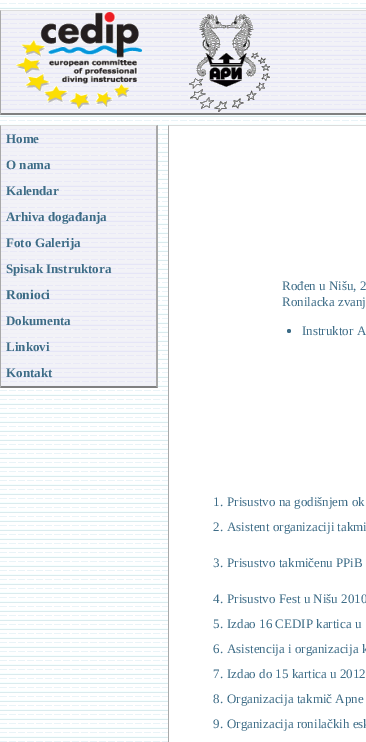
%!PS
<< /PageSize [366 742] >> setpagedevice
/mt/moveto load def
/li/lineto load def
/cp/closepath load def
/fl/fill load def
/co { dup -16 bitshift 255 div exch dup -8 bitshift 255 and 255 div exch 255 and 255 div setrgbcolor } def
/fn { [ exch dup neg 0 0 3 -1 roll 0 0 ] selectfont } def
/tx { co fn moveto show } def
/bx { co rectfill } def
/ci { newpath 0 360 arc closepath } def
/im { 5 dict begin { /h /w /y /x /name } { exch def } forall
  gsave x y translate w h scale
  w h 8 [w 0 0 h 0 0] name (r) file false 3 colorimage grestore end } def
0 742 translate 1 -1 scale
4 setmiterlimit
0 0 366 742 16#FFFFFF bx
(media/1.raw) 0 0 366 742 im
(media/2.raw) 0 10 366 105 im
16#DCDCDC co
0 10 mt 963 10 li 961 11 li 1 11 li cp fl
16#808080 co
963 115 mt 0 115 li 1 113 li 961 113 li cp fl
16#A9A9A9 co
0 115 mt 0 10 li 1 11 li 1 113 li cp fl
(media/3.raw) 16 12 126 98 im
(media/4.raw) 189 14 81 98 im
16#DCDCDC co
0 125 mt 158 125 li 156 126 li 1 126 li cp fl
16#A9A9A9 co
158 125 mt 158 388 li 156 386 li 156 126 li cp fl
16#808080 co
158 388 mt 0 388 li 1 386 li 156 386 li cp fl
16#A9A9A9 co
0 388 mt 0 125 li 1 126 li 1 386 li cp fl
(media/5.raw) 1 126 155 26 im
(media/5.raw) 1 152 155 26 im
(media/5.raw) 1 178 155 26 im
(media/5.raw) 1 204 155 26 im
(media/5.raw) 1 230 155 26 im
(media/5.raw) 1 256 155 26 im
(media/5.raw) 1 282 155 26 im
(media/5.raw) 1 308 155 26 im
(media/5.raw) 1 334 155 26 im
(media/5.raw) 1 360 155 26 im
169 129 197 613 16#FFFFFF bx
16#DCDCDC co
168 125 mt 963 125 li 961 126 li 169 126 li cp fl
16#A9A9A9 co
168 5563 mt 168 125 li 169 126 li 169 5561 li cp fl
16#3D6C87 co
289 331 2 ci fl
(Home) 6 143 /LiberationSerif-Bold 13 16#3D6C87 tx
(O nama) 6 169 /LiberationSerif-Bold 13 16#3D6C87 tx
(Kalendar) 6 195 /LiberationSerif-Bold 13 16#3D6C87 tx
(Arhiva događanja) 6 221 /LiberationSerif-Bold 13 16#3D6C87 tx
(Foto Galerija) 6 247 /LiberationSerif-Bold 13 16#3D6C87 tx
(Spisak Instruktora) 6 273 /LiberationSerif-Bold 13 16#3D6C87 tx
(Ronioci) 6 299 /LiberationSerif-Bold 13.5 16#3D6C87 tx
(Dokumenta) 6 325 /LiberationSerif-Bold 13 16#3D6C87 tx
(Linkovi) 6 351 /LiberationSerif-Bold 13 16#3D6C87 tx
(Kontakt) 6 377 /LiberationSerif-Bold 13 16#3D6C87 tx
(Rođen u Nišu, 2) 282 290 /LiberationSerif-Regular 13 16#3D6C87 tx
(Ronilacka zvanj) 282 306 /LiberationSerif-Regular 13 16#3D6C87 tx
(Instruktor A) 302 335 /LiberationSerif-Regular 13 16#3D6C87 tx
(1.) 213 506 /LiberationSerif-Regular 13 16#3D6C87 tx
(Prisustvo na godišnjem ok) 227 506 /LiberationSerif-Regular 13 16#3D6C87 tx
(2.) 213 531 /LiberationSerif-Regular 13 16#3D6C87 tx
(Asistent organizaciji takmi) 227 531 /LiberationSerif-Regular 13 16#3D6C87 tx
(3.) 213 567 /LiberationSerif-Regular 13 16#3D6C87 tx
(Prisustvo takmičenu PPiB) 227 567 /LiberationSerif-Regular 13 16#3D6C87 tx
(4.) 213 603 /LiberationSerif-Regular 13 16#3D6C87 tx
(Prisustvo Fest u Nišu 2010) 227 603 /LiberationSerif-Regular 13 16#3D6C87 tx
(5.) 213 628 /LiberationSerif-Regular 13 16#3D6C87 tx
(Izdao 16 CEDIP kartica u) 227 628 /LiberationSerif-Regular 13 16#3D6C87 tx
(6.) 213 653 /LiberationSerif-Regular 13 16#3D6C87 tx
(Asistencija i organizacija k) 227 653 /LiberationSerif-Regular 13 16#3D6C87 tx
(7.) 213 678 /LiberationSerif-Regular 13 16#3D6C87 tx
(Izdao do 15 kartica u 2012) 227 678 /LiberationSerif-Regular 13 16#3D6C87 tx
(8.) 213 703 /LiberationSerif-Regular 13 16#3D6C87 tx
(Organizacija takmič Apne) 227 703 /LiberationSerif-Regular 13 16#3D6C87 tx
(9.) 213 728 /LiberationSerif-Regular 13 16#3D6C87 tx
(Organizacija ronilačkih esk) 227 728 /LiberationSerif-Regular 13 16#3D6C87 tx
showpage
